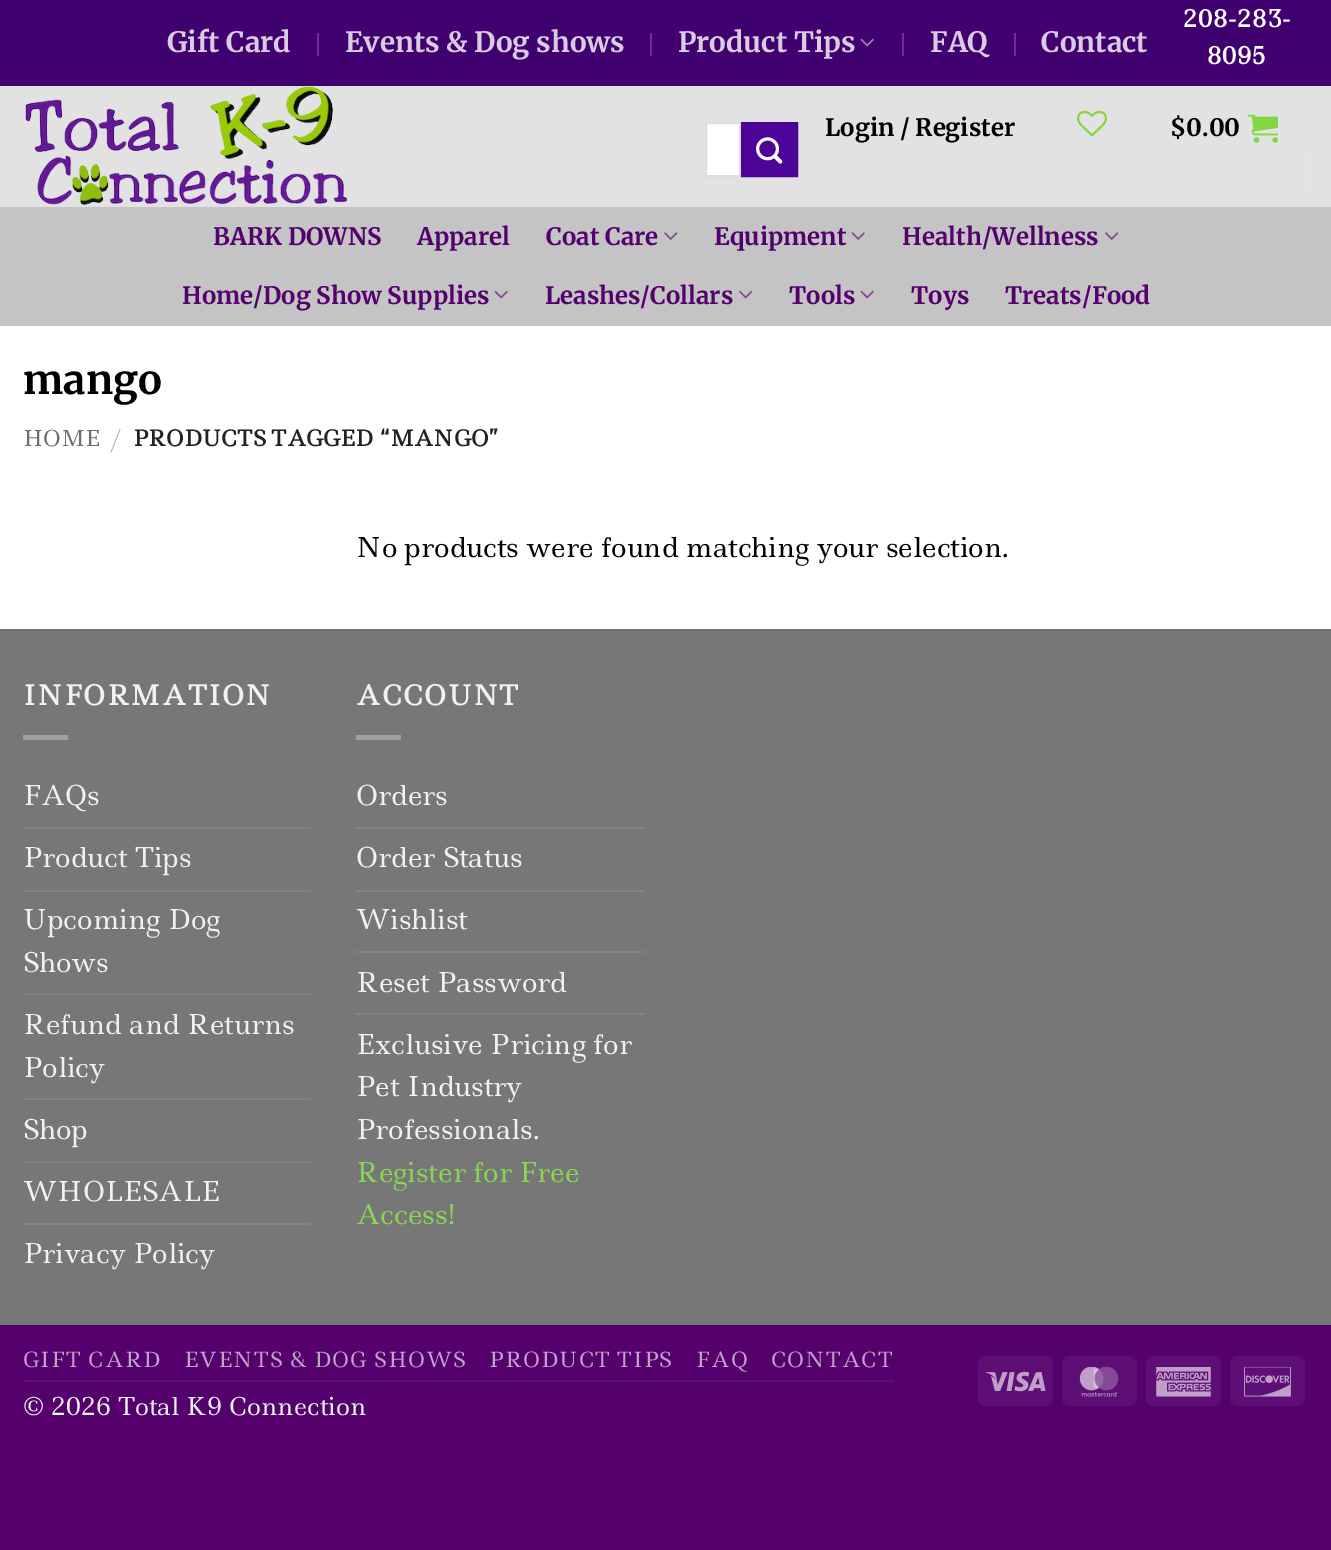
%!PS
<< /PageSize [1331 1550] >> setpagedevice
/mt/moveto load def
/li/lineto load def
/cp/closepath load def
/fl/fill load def
/st/stroke load def
/gs/gsave load def
/gr/grestore load def
/lw/setlinewidth load def
/co { dup -16 bitshift 255 div exch dup -8 bitshift 255 and 255 div exch 255 and 255 div setrgbcolor } def
/fn { [ exch dup neg 0 0 3 -1 roll 0 0 ] selectfont } def
/tx { co fn moveto show } def
/bx { co rectfill } def
/rr { 5 dict begin { /r /h /w /y /x } { exch def } forall
  x r add y moveto x w add y 2 copy h add r arct x w add y h add x 1 index r arct
  x y h add x y r arct x y 2 copy exch w add exch r arct closepath end } def
/im { 5 dict begin { /h /w /y /x /name } { exch def } forall
  gsave x y translate w h scale
  w h 8 [w 0 0 h 0 0] name (r) file false 3 colorimage grestore end } def
0 1550 translate 1 -1 scale
4 setmiterlimit
0 0 1331 1550 16#54006D bx
0 326 1331 303 16#FFFFFF bx
0 0 1331 86 16#410070 bx
317 33 2 23 16#67338D bx
650 33 2 23 16#67338D bx
(media/1.raw) 860 38 14 9 im
902 33 2 23 16#67338D bx
1014 33 2 23 16#67338D bx
0 86 1331 121 16#E2E2E2 bx
(media/2.raw) 25 86 322 119 im
16#FFFFFF co
706 123 mt 740 123 li 740 176 li 706 176 li cp gs fl gr
16#DDDDDD co
2 lw
st
16#4F0499 co
742 123 mt 797 123 li 797 176 li 742 176 li cp gs fl gr
16#4B0491 co
st
(media/3.raw) 756 137 27 27 im
(media/4.raw) 1077 110 30 27 im
(media/5.raw) 1248 114 30 29 im
1308 150 2 45 16#E5E5E5 bx
0 207 1331 119 16#C4C4C4 bx
(media/6.raw) 664 232 14 8 im
(media/7.raw) 851 232 14 8 im
(media/6.raw) 1105 232 14 8 im
(media/8.raw) 494 290 14 9 im
(media/9.raw) 739 290 14 9 im
(media/8.raw) 860 290 14 9 im
0 631 1331 694 16#777777 bx
0 629 1331 2 16#717171 bx
23 735 45 5 16#A0A0A0 bx
23 827 288 2 16#828282 bx
23 890 288 2 16#828282 bx
23 993 288 2 16#828282 bx
23 1098 288 2 16#828282 bx
23 1161 288 2 16#828282 bx
23 1223 288 2 16#828282 bx
356 735 45 5 16#A0A0A0 bx
356 827 288 2 16#828282 bx
356 890 288 2 16#828282 bx
356 951 288 2 16#828282 bx
356 1013 288 2 16#828282 bx
23 1380 871 2 16#5F1076 bx
16#5E0F76 co
978 1356 75 50 8 rr fl
(media/10.raw) 986 1371 60 21 im
1062 1356 75 50 8 rr fl
(media/11.raw) 1079 1367 40 30 im
1146 1356 75 50 8 rr fl
(media/12.raw) 1156 1367 55 30 im
1230 1356 75 50 8 rr fl
(media/13.raw) 1244 1367 47 30 im
(Gift Card) 167 52 /Merriweather-Light 28 16#D9CCE2 tx
(Events & Dog shows) 345 52 /Merriweather-Light 28 16#D9CCE2 tx
(Product Tips) 678 52 /Merriweather-Light 28 16#D9CCE2 tx
(FAQ) 930 52 /Merriweather-Light 28 16#D9CCE2 tx
(Contact) 1041 52 /Merriweather-Light 28 16#D9CCE2 tx
/Ledger-Bold 23 fn
16#FFFFFF co
1183 27 mt .75 0 (208-283-) ashow
1207 64 mt .75 0 (8095) ashow
(Login / Register) 825 136 /Merriweather-Light 24 16#000000 tx
($0.00) 1170 136 /Merriweather-Light 24 16#000000 tx
(BARK DOWNS) 213 245 /Merriweather-Light 24 16#54006D tx
(Apparel) 417 245 /Merriweather-Light 24 16#54006D tx
(Coat Care) 546 245 /Merriweather-Light 24 16#54006D tx
(Equipment) 714 245 /Merriweather-Light 24 16#54006D tx
(Health/Wellness) 902 245 /Merriweather-Light 24 16#54006D tx
(Home/Dog Show Supplies) 182 304 /Merriweather-Light 24 16#54006D tx
(Leashes/Collars) 545 304 /Merriweather-Light 24 16#54006D tx
(Tools) 789 304 /Merriweather-Light 24 16#54006D tx
(Toys) 911 304 /Merriweather-Light 24 16#54006D tx
(Treats/Food) 1005 304 /Merriweather-Light 24 16#54006D tx
(mango) 23 394 /Merriweather-Light 40 16#000000 tx
(HOME) 23 446 /Ledger-Regular 21.3 16#6E6E6E tx
(/) 112 446 /Ledger-Regular 21.3 16#B2B2B2 tx
(PRODUCTS TAGGED “MANGO”) 133 446 /Ledger-Bold 21.3 16#222222 tx
(No products were found matching your selection.) 356 557 /Ledger-Regular 26.6 16#000000 tx
/Ledger-Bold 26.6 fn
16#F1F1F1 co
23 705 mt 1.25 0 (INFORMATION) ashow
(FAQs) 23 805 /Ledger-Regular 26.6 16#F1F1F1 tx
(Product Tips) 23 867 /Ledger-Regular 26.6 16#F1F1F1 tx
(Upcoming Dog) 23 929 /Ledger-Regular 26.6 16#F1F1F1 tx
(Shows) 23 972 /Ledger-Regular 26.6 16#F1F1F1 tx
(Refund and Returns) 23 1034 /Ledger-Regular 26.6 16#F1F1F1 tx
(Policy) 23 1077 /Ledger-Regular 26.6 16#F1F1F1 tx
(Shop) 23 1139 /Ledger-Regular 26.6 16#F1F1F1 tx
(WHOLESALE) 23 1201 /Ledger-Regular 26.6 16#F1F1F1 tx
(Privacy Policy) 23 1263 /Ledger-Regular 26.6 16#F1F1F1 tx
/Ledger-Bold 26.6 fn
356 705 mt 1.25 0 (ACCOUNT) ashow
(Orders) 356 805 /Ledger-Regular 26.6 16#F1F1F1 tx
(Order Status) 356 867 /Ledger-Regular 26.6 16#F1F1F1 tx
(Wishlist) 356 929 /Ledger-Regular 26.6 16#F1F1F1 tx
(Reset Password) 356 992 /Ledger-Regular 26.6 16#F1F1F1 tx
(Exclusive Pricing for) 356 1054 /Ledger-Regular 26.6 16#F1F1F1 tx
(Pet Industry) 356 1096 /Ledger-Regular 26.6 16#F1F1F1 tx
(Professionals.) 356 1139 /Ledger-Regular 26.6 16#F1F1F1 tx
(Register for Free) 356 1182 /Ledger-Regular 26.6 16#89D751 tx
(Access!) 356 1224 /Ledger-Regular 26.6 16#89D751 tx
/Ledger-Regular 20.4 fn
16#C2A3CB co
23 1367 mt 1 0 (GIFT CARD) ashow
184 1367 mt 1 0 (EVENTS & DOG SHOWS) ashow
489 1367 mt 1 0 (PRODUCT TIPS) ashow
696 1367 mt 1 0 (FAQ) ashow
771 1367 mt 1 0 (CONTACT) ashow
(© 2026 Total K9 Connection) 23 1415 /Ledger-Regular 24 16#F1F1F1 tx
showpage
